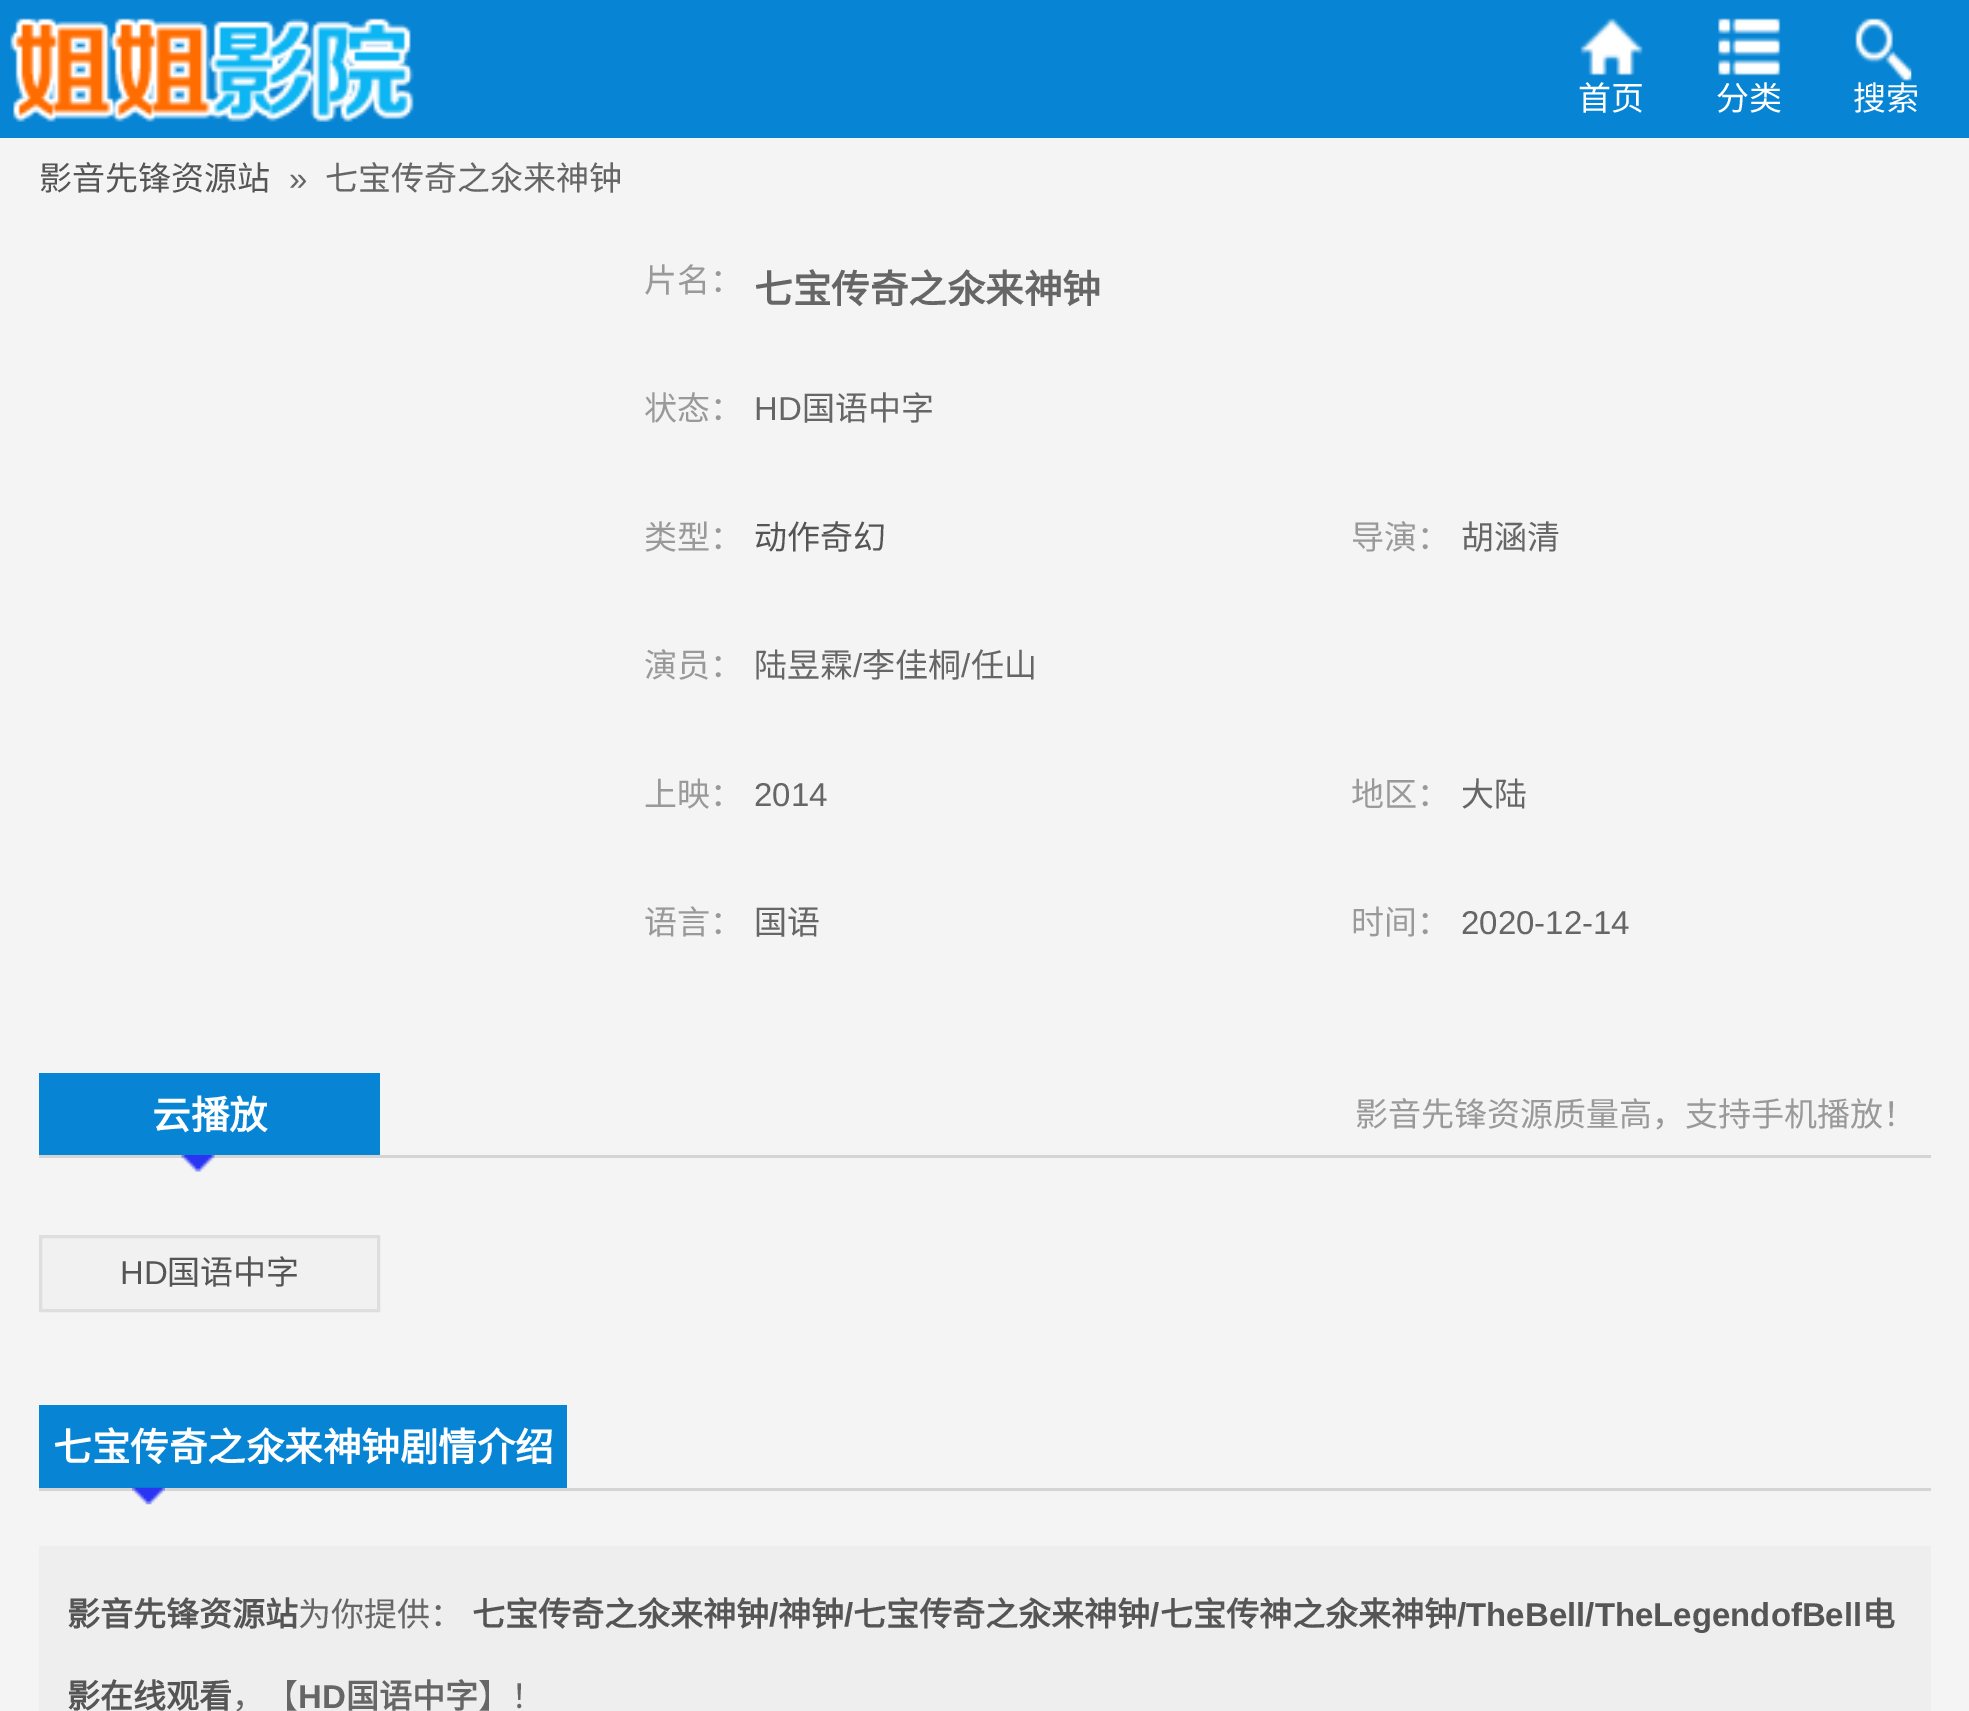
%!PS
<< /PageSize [1969 1711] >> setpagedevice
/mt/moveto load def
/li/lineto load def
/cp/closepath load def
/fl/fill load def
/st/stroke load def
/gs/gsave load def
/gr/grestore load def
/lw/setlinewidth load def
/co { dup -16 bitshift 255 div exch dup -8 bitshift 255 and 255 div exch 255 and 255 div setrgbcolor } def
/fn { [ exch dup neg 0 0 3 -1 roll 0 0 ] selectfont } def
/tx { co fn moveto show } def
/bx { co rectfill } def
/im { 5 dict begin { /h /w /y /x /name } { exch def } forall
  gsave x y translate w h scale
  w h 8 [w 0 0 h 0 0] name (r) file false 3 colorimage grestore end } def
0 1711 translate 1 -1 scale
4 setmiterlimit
0 0 1969 1711 16#F4F4F4 bx
0 0 1969 138 16#0785D4 bx
(media/1.raw) 10 18 404 104 im
(media/2.raw) 1580 18 63 58 im
(media/3.raw) 1718 18 63 58 im
(media/4.raw) 1855 18 57 63 im
39 1155 1892 3 16#D4D4D4 bx
39 1073 341 82 16#0785D4 bx
(media/5.raw) 181 1155 34 17 im
16#F1F1F1 co
40.5 1236.5 mt 378.5 1236.5 li 378.5 1310.5 li 40.5 1310.5 li cp gs fl gr
16#DEDEDE co
3 lw
st
39 1488 1892 3 16#D4D4D4 bx
39 1405 528 83 16#0785D4 bx
(media/6.raw) 132 1487 33 18 im
39 1546 1892 165 16#EEEEEE bx
(首页) 1578 110 /NotoSansCJKSC-Regular 33 16#FFFFFF tx
(分类) 1716 110 /NotoSansCJKSC-Regular 33 16#FFFFFF tx
(搜索) 1853 110 /NotoSansCJKSC-Regular 33 16#FFFFFF tx
(影音先锋资源站) 39 190 /NotoSansCJKSC-Regular 33 16#555555 tx
(») 289 190 /LiberationSans-Regular 33 16#666666 tx
(七宝传奇之氽来神钟) 325 190 /NotoSansCJKSC-Regular 33 16#666666 tx
(片名：) 644 292 /NotoSansCJKSC-Regular 33 16#999999 tx
(七宝传奇之氽来神钟) 754 303 /NotoSansCJKSC-Bold 38.5 16#666666 tx
(状态：) 644 420 /NotoSansCJKSC-Regular 33 16#999999 tx
(HD) 754 420 /LiberationSans-Regular 33 16#666666 tx
(国语中字) 802 420 /NotoSansCJKSC-Regular 33 16#666666 tx
(类型：) 644 549 /NotoSansCJKSC-Regular 33 16#999999 tx
(动作奇幻) 754 549 /NotoSansCJKSC-Regular 33 16#555555 tx
(导演：) 1351 549 /NotoSansCJKSC-Regular 33 16#999999 tx
(胡涵清) 1461 549 /NotoSansCJKSC-Regular 33 16#666666 tx
(演员：) 644 677 /NotoSansCJKSC-Regular 33 16#999999 tx
(陆昱霖) 754 677 /NotoSansCJKSC-Regular 33 16#666666 tx
(/) 853 677 /LiberationSans-Regular 33 16#666666 tx
(李佳桐) 862 677 /NotoSansCJKSC-Regular 33 16#666666 tx
(/) 961 677 /LiberationSans-Regular 33 16#666666 tx
(任山) 971 677 /NotoSansCJKSC-Regular 33 16#666666 tx
(上映：) 644 806 /NotoSansCJKSC-Regular 33 16#999999 tx
(2014) 754 806 /LiberationSans-Regular 33 16#666666 tx
(地区：) 1351 806 /NotoSansCJKSC-Regular 33 16#999999 tx
(大陆) 1461 806 /NotoSansCJKSC-Regular 33 16#666666 tx
(语言：) 644 934 /NotoSansCJKSC-Regular 33 16#999999 tx
(国语) 754 934 /NotoSansCJKSC-Regular 33 16#666666 tx
(时间：) 1351 934 /NotoSansCJKSC-Regular 33 16#999999 tx
(2020-12-14) 1461 934 /LiberationSans-Regular 33 16#666666 tx
(云播放) 152 1129 /NotoSansCJKSC-Bold 38.5 16#FFFFFF tx
(影音先锋资源质量高，支持手机播放！) 1355 1126 /NotoSansCJKSC-Regular 33 16#999999 tx
(HD) 120 1284 /LiberationSans-Regular 33 16#555555 tx
(国语中字) 167 1284 /NotoSansCJKSC-Regular 33 16#555555 tx
(七宝传奇之氽来神钟剧情介绍) 53 1461 /NotoSansCJKSC-Bold 38.5 16#FFFFFF tx
(影音先锋资源站) 67 1626 /NotoSansCJKSC-Bold 33 16#555555 tx
(为你提供：) 298 1626 /NotoSansCJKSC-Regular 33 16#666666 tx
(七宝传奇之氽来神钟) 472 1626 /NotoSansCJKSC-Bold 33 16#555555 tx
(/) 769 1626 /LiberationSans-Bold 33 16#555555 tx
(神钟) 778 1626 /NotoSansCJKSC-Bold 33 16#555555 tx
(/) 844 1626 /LiberationSans-Bold 33 16#555555 tx
(七宝传奇之汆来神钟) 853 1626 /NotoSansCJKSC-Bold 33 16#555555 tx
(/) 1150 1626 /LiberationSans-Bold 33 16#555555 tx
(七宝传神之氽来神钟) 1160 1626 /NotoSansCJKSC-Bold 33 16#555555 tx
(/TheBell/TheLegendofBell) 1457 1626 /LiberationSans-Bold 33 16#555555 tx
(电) 1862 1626 /NotoSansCJKSC-Bold 33 16#555555 tx
(影在线观看) 67 1708 /NotoSansCJKSC-Bold 33 16#555555 tx
(，【) 232 1708 /NotoSansCJKSC-Regular 33 16#666666 tx
(HD) 298 1708 /LiberationSans-Bold 33 16#666666 tx
(国语中字) 346 1708 /NotoSansCJKSC-Bold 33 16#666666 tx
(】！) 478 1708 /NotoSansCJKSC-Regular 33 16#666666 tx
showpage
